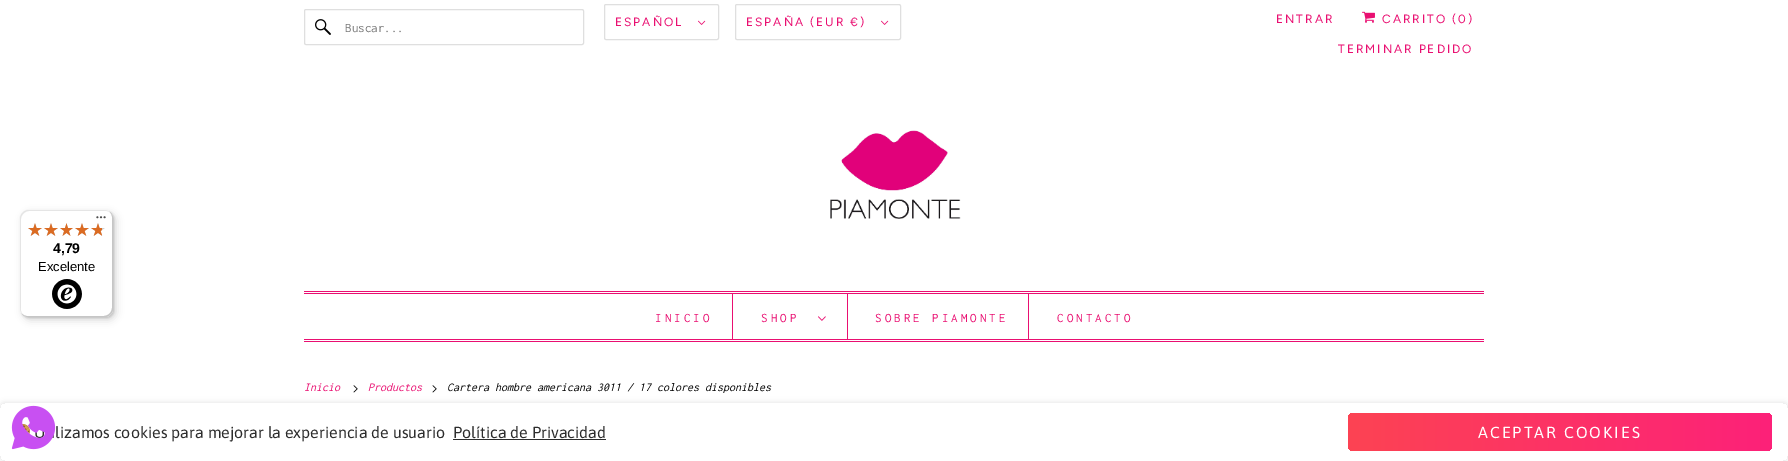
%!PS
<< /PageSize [1788 461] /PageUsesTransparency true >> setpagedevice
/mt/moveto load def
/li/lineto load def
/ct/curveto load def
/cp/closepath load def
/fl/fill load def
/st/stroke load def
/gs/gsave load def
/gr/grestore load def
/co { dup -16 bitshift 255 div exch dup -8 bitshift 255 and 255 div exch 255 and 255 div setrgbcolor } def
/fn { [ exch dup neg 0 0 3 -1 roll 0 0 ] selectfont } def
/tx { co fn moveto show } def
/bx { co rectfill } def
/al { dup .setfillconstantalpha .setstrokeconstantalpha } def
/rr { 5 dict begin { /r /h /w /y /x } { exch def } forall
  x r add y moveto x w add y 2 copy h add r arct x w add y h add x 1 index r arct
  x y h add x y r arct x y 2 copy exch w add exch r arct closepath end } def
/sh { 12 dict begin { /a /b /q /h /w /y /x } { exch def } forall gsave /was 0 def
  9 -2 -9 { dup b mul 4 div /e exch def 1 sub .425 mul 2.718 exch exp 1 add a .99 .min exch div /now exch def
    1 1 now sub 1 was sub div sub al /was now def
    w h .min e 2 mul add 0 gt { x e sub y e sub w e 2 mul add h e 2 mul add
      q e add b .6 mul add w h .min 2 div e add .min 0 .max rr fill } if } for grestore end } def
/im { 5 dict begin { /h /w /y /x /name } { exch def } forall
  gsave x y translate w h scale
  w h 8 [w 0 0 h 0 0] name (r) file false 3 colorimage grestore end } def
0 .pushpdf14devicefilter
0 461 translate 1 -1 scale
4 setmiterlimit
0 0 1788 461 16#FFFFFF bx
16#000000 co
23 213 93 107 8 4 .15 sh
21 211 93 107 8 1 .15 sh
16#FFFFFF co
20 210 93 107 8 rr fl
16#E5E5E5 co
29 211 mt 106 211 li 108 211 110 212 112 214 ct 110 212 108 210 105 210 ct 28 210 li 24 210 20 214 20 218 ct 20 309 li 20 312 22 314 24 316 ct 22 314 21 312 21 310 ct 21 219 li 21 215 25 211 29 211 ct cp fl
16#CCCCCC co
21 313 mt 23 315 25 317 28 317 ct 105 317 li 109 317 113 313 113 309 ct 113 218 li 113 215 111 213 109 211 ct 111 213 112 215 112 217 ct 112 308 li 112 312 108 316 104 316 ct 27 316 li 25 316 23 315 21 313 ct cp fl
0.2 al
16#323232 co
22 314 mt 23 316 26 317 28 317 ct 105 317 li 109 317 113 313 113 309 ct 113 218 li 113 216 112 213 110 212 ct 111 213 112 215 112 217 ct 112 308 li 112 313 109 316 104 316 ct 27 316 li 25 316 23 315 22 314 ct cp fl
0.3 al
16#FFFFFF co
112 218 mt 112 213 109 210 104 210 ct 105 210 li 109 210 113 214 113 218 ct 113 309 li 113 313 109 317 105 317 ct 28 317 li 24 317 20 313 20 309 ct 20 308 li 20 313 23 316 28 316 ct 104 316 li 109 316 112 313 112 308 ct cp fl
1 al
(media/1.raw) 96 216 10 3 im
(media/2.raw) 28 223 14 13 im
(media/2.raw) 44 223 14 13 im
(media/3.raw) 60 223 13 13 im
(media/2.raw) 75 223 14 13 im
(media/2.raw) 91 223 14 13 im
(media/4.raw) 28 223 14 13 im
(media/4.raw) 44 223 14 13 im
(media/5.raw) 60 223 13 13 im
(media/4.raw) 75 223 14 13 im
(media/6.raw) 91 223 11 13 im
(media/7.raw) 52 279 30 30 im
16#DFDFDF co
304.5 9.5 279 35 1.5 rr st
(media/8.raw) 315 19 16 16 im
604.5 4.5 114 35 1.5 rr st
(media/9.raw) 698 20 8 5 im
735.5 4.5 165 35 1.5 rr st
(media/9.raw) 881 20 8 5 im
(media/10.raw) 1362 11 13 12 im
(media/11.raw) 830 130 131 89 im
304 291 1180 1 16#E90F71 bx
304 293 1180 1 16#E90F71 bx
304 339 1180 1 16#E90F71 bx
304 341 1180 1 16#E90F71 bx
732 294 1 45 16#E90F71 bx
847 294 1 45 16#E90F71 bx
(media/12.raw) 818 316 8 5 im
1028 294 1 45 16#E90F71 bx
(media/13.raw) 353 385 5 8 im
(media/13.raw) 432 385 5 8 im
gs
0 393 mt 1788 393 li 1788 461 li 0 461 li cp 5 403 mt 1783 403 li 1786 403 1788 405 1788 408 ct 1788 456 li 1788 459 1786 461 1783 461 ct 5 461 li 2 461 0 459 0 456 ct 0 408 li 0 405 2 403 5 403 ct cp eoclip newpath
16#000000 co
0 403 1788 58 5 3 .12 sh
gr
(media/15.raw) 22 424 8 10 im
(media/14.raw) 11 405 45 45 im
453 439 153 1 16#2D2D2D bx
gs 1348 413 424 38 5 rr clip newpath
<< /ShadingType 2 /ColorSpace /DeviceRGB /Coords [1348 432 1772 432] /Extend [true true] /Function << /FunctionType 2 /Domain [0 1] /C0 [.988 .263 .325] /C1 [.988 .129 .475] /N 1 >> >> shfill gr
(4,79) 53 253 /LiberationSans-Bold 14 16#000000 tx
(Excelente) 38 271 /LiberationSans-Regular 13 16#000000 tx
(Buscar...) 345 32 /Inconsolata-Regular 13 16#757575 tx
/Figtree-Regular 12 fn
16#E90F71 co
615 26 mt 2 0 (ESPAÑOL) ashow
746 26 mt 2 0 (ESPAÑA \(EUR €\)) ashow
1276 23 mt 2 0 (ENTRAR) ashow
1382 23 mt 2 0 (CARRITO \(0\)) ashow
1338 53 mt 2 0 (TERMINAR PEDIDO) ashow
/Inconsolata-Regular 13 fn
655 322 mt 3 0 (INICIO) ashow
761 322 mt 3 0 (SHOP) ashow
875 322 mt 3 0 (SOBRE PIAMONTE) ashow
1057 322 mt 3 0 (CONTACTO) ashow
(Inicio) 304 391 /Inconsolata-Italic 12 16#E90F71 tx
(Productos) 368 391 /Inconsolata-Italic 12 16#E90F71 tx
(Cartera hombre americana 3011 / 17 colores disponibles) 447 391 /Inconsolata-Italic 12 16#000000 tx
(lizamos cookies para mejorar la experiencia de usuario) 55 438 /Asap-Regular 16 16#2D2D2D tx
(Política de Privacidad) 453 438 /Asap-Regular 16 16#2D2D2D tx
16#FFFFFF co
1478 438 mt 2 0 (ACEPTAR COOKIES) ashow
.poppdf14devicefilter showpage
